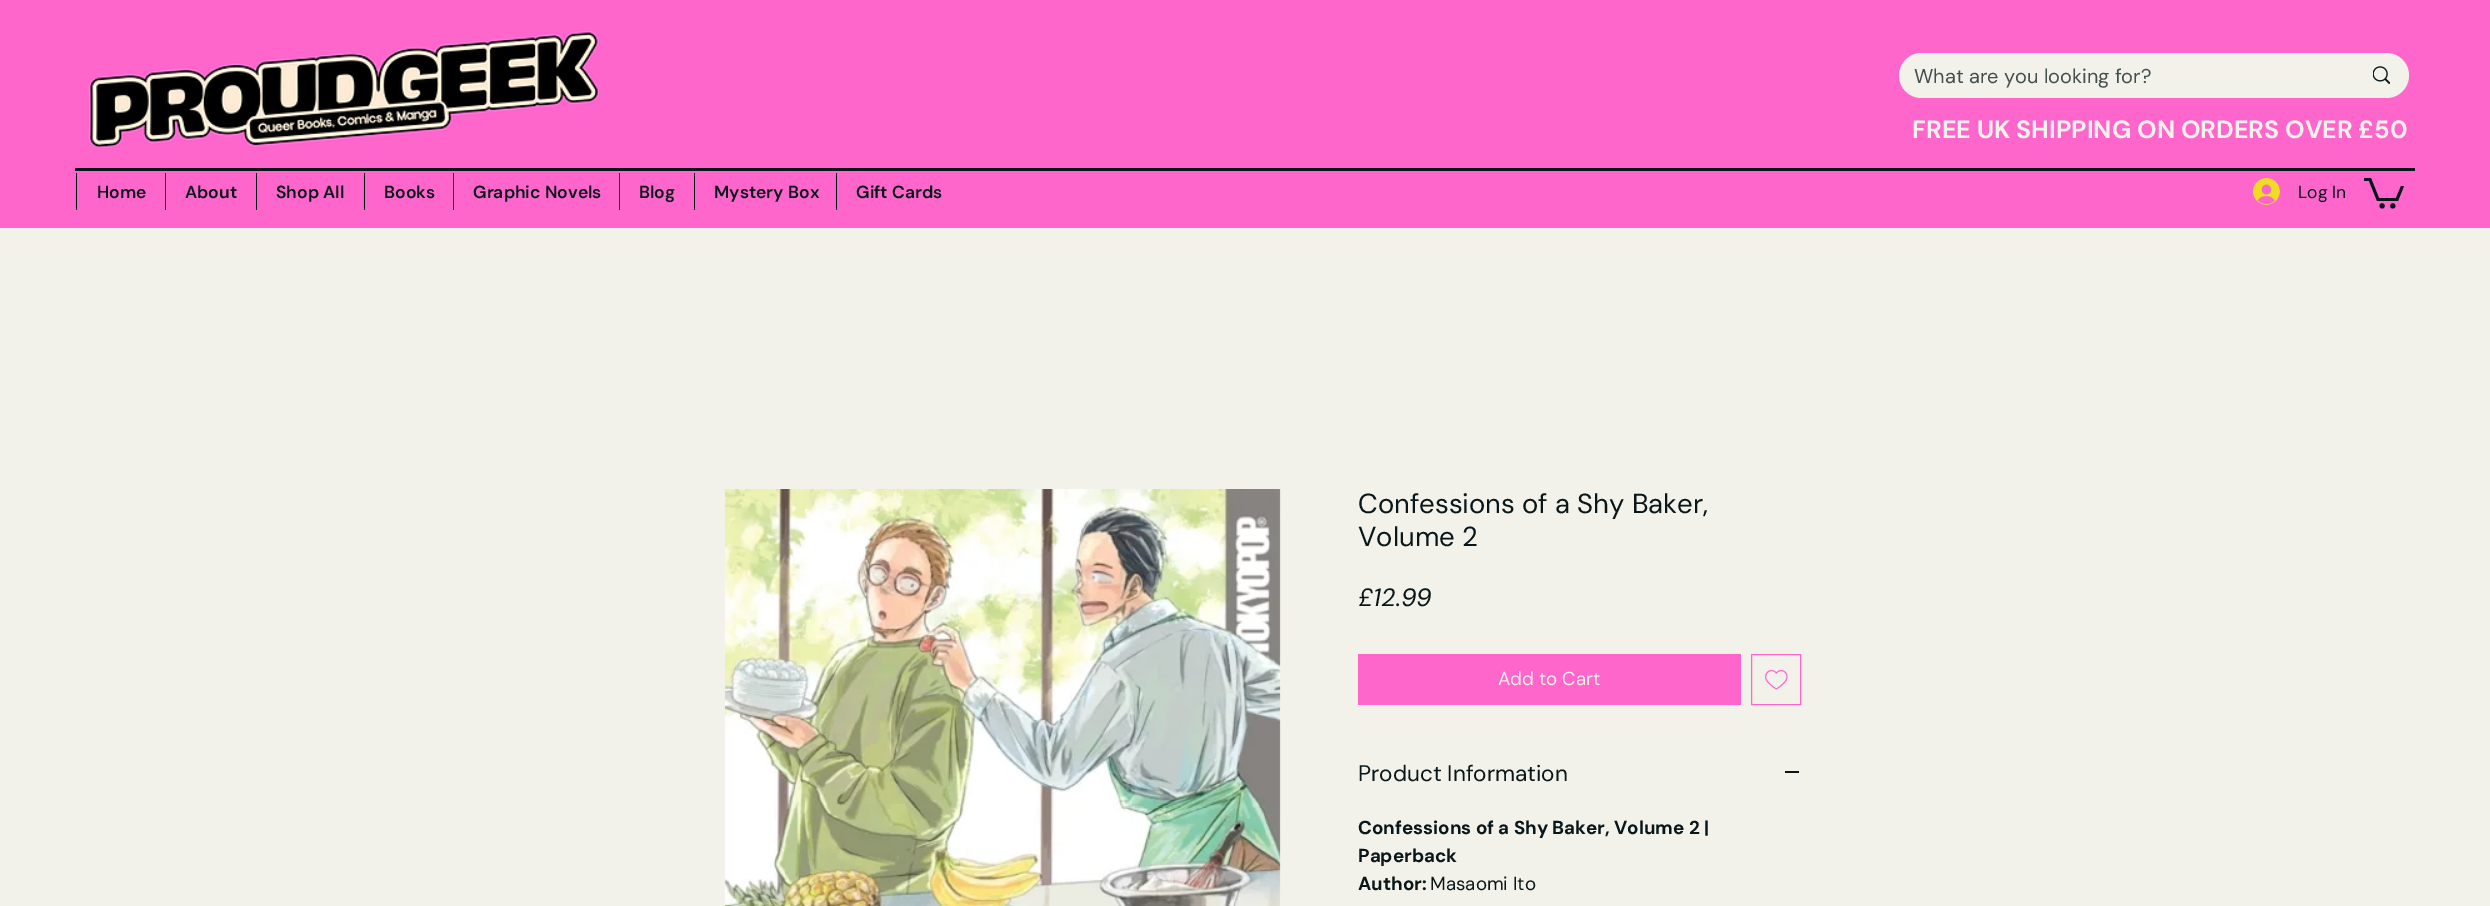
%!PS
<< /PageSize [2490 906] >> setpagedevice
/mt/moveto load def
/li/lineto load def
/fl/fill load def
/co { dup -16 bitshift 255 div exch dup -8 bitshift 255 and 255 div exch 255 and 255 div setrgbcolor } def
/fn { [ exch dup neg 0 0 3 -1 roll 0 0 ] selectfont } def
/tx { co fn moveto show } def
/bx { co rectfill } def
/ci { newpath 0 360 arc closepath } def
/rr { 5 dict begin { /r /h /w /y /x } { exch def } forall
  x r add y moveto x w add y 2 copy h add r arct x w add y h add x 1 index r arct
  x y h add x y r arct x y 2 copy exch w add exch r arct closepath end } def
/im { 5 dict begin { /h /w /y /x /name } { exch def } forall
  gsave x y translate w h scale
  w h 8 [w 0 0 h 0 0] name (r) file false 3 colorimage grestore end } def
0 906 translate 1 -1 scale
4 setmiterlimit
0 0 2490 906 16#F2F2EA bx
0 0 2490 228 16#FF66CC bx
(media/1.raw) 88 30 512 119 im
76 173 1 37 16#09171A bx
165 173 1 37 16#09171A bx
256 173 1 37 16#09171A bx
364 173 1 37 16#09171A bx
453 173 1 37 16#09171A bx
619 173 1 37 16#09171A bx
694 173 1 37 16#09171A bx
836 173 1 37 16#09171A bx
16#F2F2EA co
1899 53 510 45 22.5 rr fl
(media/2.raw) 2373 66 17 18 im
(media/3.raw) 2253 178 27 27 im
16#09171A co
2404 186 mt 2398 201 li 2377 201 li 2369 181 li 2364 181 li 2364 178 li 2371 178 li 2379 198 li 2396 198 li 2401 186 li fl
2392.8 205.9 2.6 ci fl
2382.1 205.9 2.6 ci fl
75 168 2340 3 16#09171A bx
(media/4.raw) 724 489 557 417 im
1358 654 383 51 16#FF66CC bx
1751.5 654.5 49 50 rectstroke
(media/5.raw) 1765 670 23 20 im
1785 771 14 2 16#09171A bx
(Home) 97 198 /DMSans-SemiBold 17.5 16#09171A tx
(About) 185 198 /DMSans-SemiBold 17.5 16#09171A tx
(Shop All) 276 198 /DMSans-SemiBold 17.5 16#09171A tx
(Books) 384 198 /DMSans-SemiBold 17.5 16#09171A tx
(Graphic Novels) 473 198 /DMSans-SemiBold 17.5 16#09171A tx
(Blog) 639 198 /DMSans-SemiBold 17.5 16#09171A tx
(Mystery Box) 714 198 /DMSans-SemiBold 17.5 16#09171A tx
(Gift Cards) 856 198 /DMSans-SemiBold 17.5 16#09171A tx
(What are you looking for?) 1914 83 /DMSans-Regular 20 16#434E4E tx
(FREE UK SHIPPING ON ORDERS OVER £50) 1912 138 /DMSans-Bold 25 16#F2F2EA tx
(Log In) 2298 198 /DMSans-Regular 17.5 16#09171A tx
(Confessions of a Shy Baker,) 1358 513 /DMSans-Regular 27.5 16#09171A tx
(Volume 2) 1358 546 /DMSans-Regular 27.5 16#09171A tx
(£12.99) 1358 606 /DMSans-Italic 25 16#09171A tx
(Add to Cart) 1498 685 /DMSans-Regular 18.75 16#F2F2EA tx
(Product Information) 1358 781 /DMSans-Regular 22.5 16#09171A tx
(Confessions of a Shy Baker, Volume 2 |) 1358 834 /DMSans-Bold 18.75 16#09171A tx
(Paperback) 1358 862 /DMSans-Bold 18.75 16#09171A tx
(Author:) 1358 890 /DMSans-Bold 18.75 16#09171A tx
(Masaomi Ito) 1430 890 /DMSans-Regular 18.75 16#09171A tx
showpage
